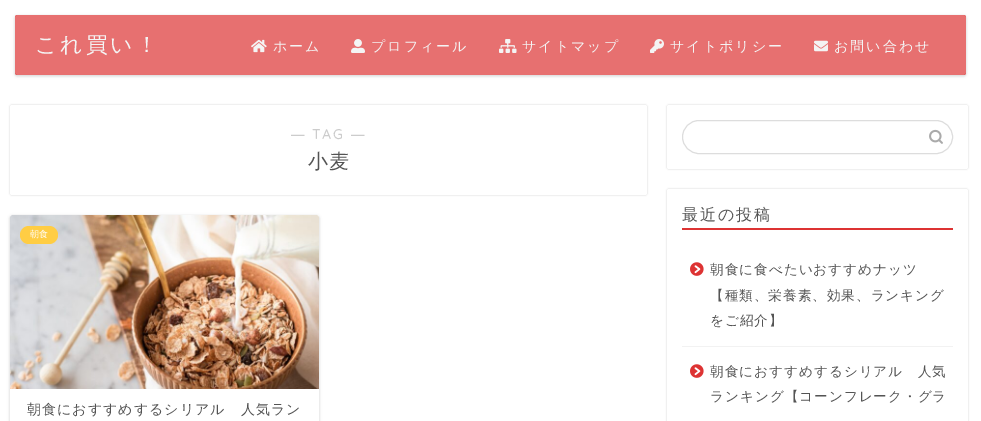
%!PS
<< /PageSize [981 421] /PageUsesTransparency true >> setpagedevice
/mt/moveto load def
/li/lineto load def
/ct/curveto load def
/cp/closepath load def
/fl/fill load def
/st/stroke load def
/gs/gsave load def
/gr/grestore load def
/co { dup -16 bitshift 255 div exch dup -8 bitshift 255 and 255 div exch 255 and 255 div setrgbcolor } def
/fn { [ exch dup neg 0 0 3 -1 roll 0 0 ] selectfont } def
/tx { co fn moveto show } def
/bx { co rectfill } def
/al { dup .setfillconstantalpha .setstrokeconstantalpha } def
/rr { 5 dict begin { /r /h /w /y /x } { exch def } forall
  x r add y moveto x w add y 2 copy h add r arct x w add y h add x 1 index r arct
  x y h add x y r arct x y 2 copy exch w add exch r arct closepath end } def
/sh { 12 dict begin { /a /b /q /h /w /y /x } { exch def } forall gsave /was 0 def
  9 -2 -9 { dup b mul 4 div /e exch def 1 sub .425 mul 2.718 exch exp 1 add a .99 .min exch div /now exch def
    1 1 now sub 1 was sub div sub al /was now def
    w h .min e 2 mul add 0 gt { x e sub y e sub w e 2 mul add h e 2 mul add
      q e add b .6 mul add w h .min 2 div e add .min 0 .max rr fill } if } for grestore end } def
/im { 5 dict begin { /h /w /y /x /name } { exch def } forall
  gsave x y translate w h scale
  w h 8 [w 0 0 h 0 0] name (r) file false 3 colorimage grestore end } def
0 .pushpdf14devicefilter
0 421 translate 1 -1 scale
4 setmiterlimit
0 0 981 421 16#FFFFFF bx
gs
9 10 mt 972 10 li 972 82 li 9 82 li cp 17 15 mt 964 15 li 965 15 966 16 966 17 ct 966 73 li 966 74 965 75 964 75 ct 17 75 li 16 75 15 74 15 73 ct 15 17 li 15 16 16 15 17 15 ct cp eoclip newpath
16#000000 co
15 16 951 60 2 1.5 .18 sh
gr
0.7 al
16#DD3333 co
15 15 951 60 2 rr fl
1 al
(media/1.raw) 251 39 16 14 im
(media/2.raw) 351 39 14 14 im
(media/3.raw) 499 39 18 14 im
(media/4.raw) 650 39 14 14 im
(media/5.raw) 814 40 14 12 im
16#000000 co
10 105 637 90 2 1 .18 sh
16#FFFFFF co
10 105 637 90 2 rr fl
16#000000 co
10 216 309 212 2 1.5 .18 sh
16#FFFFFF co
10 215 309 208 2 rr fl
(media/6.raw) 10 215 309 174 im
16#FFCD44 co
20 226 38 18 9 rr fl
16#000000 co
667 105 301 64 2 1 .18 sh
16#FFFFFF co
667 105 301 64 2 rr fl
16#DDDDDD co
682.5 120.5 270 33 16.5 rr st
(media/7.raw) 929 129 14 15 im
16#000000 co
667 189 301 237 2 1 .18 sh
16#FFFFFF co
667 189 301 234 2 rr fl
682 228 271 2 16#DD3333 bx
682 346 271 1 16#F2F2F2 bx
(media/8.raw) 690 262 14 14 im
(media/8.raw) 690 364 14 14 im
/WenQuanYiZenHei-Medium 21.75 fn
16#F4F4F4 co
35 52 mt 3 0 (これ買い！) ashow
/WenQuanYiZenHei-Medium 14 fn
273 51 mt 2 0 (ホーム) ashow
371 51 mt 2 0 (プロフィール) ashow
522 51 mt 2 0 (サイトマップ) ashow
670 51 mt 2 0 (サイトポリシー) ashow
834 51 mt 2 0 (お問い合わせ) ashow
/LiberationSans-Bold 13.6 fn
16#CCCCCC co
291 139 mt 2 0 (―) ashow
/Quicksand-Bold 13.6 fn
312 139 mt 2 0 (TAG) ashow
/LiberationSans-Bold 13.6 fn
351 139 mt 2 0 (―) ashow
/WenQuanYiZenHei-Medium 20 fn
16#545454 co
308 168 mt 1 0 (小麦) ashow
(朝食) 30 237 /WenQuanYiZenHei-Medium 9 16#FFFFFF tx
/WenQuanYiZenHei-Medium 14 fn
16#545454 co
27 414 mt 1 0 (朝食におすすめするシリアル　人気ラン) ashow
/WenQuanYiZenHei-Medium 16 fn
682 220 mt 2 0 (最近の投稿) ashow
/WenQuanYiZenHei-Medium 13.6 fn
710 274 mt 1 0 (朝食に食べたいおすすめナッツ) ashow
710 300 mt 1 0 (【種類、栄養素、効果、ランキング) ashow
710 325 mt 1 0 (をご紹介】) ashow
710 376 mt 1 0 (朝食におすすめするシリアル　人気) ashow
710 401 mt 1 0 (ランキング【コーンフレーク・グラ) ashow
.poppdf14devicefilter showpage
